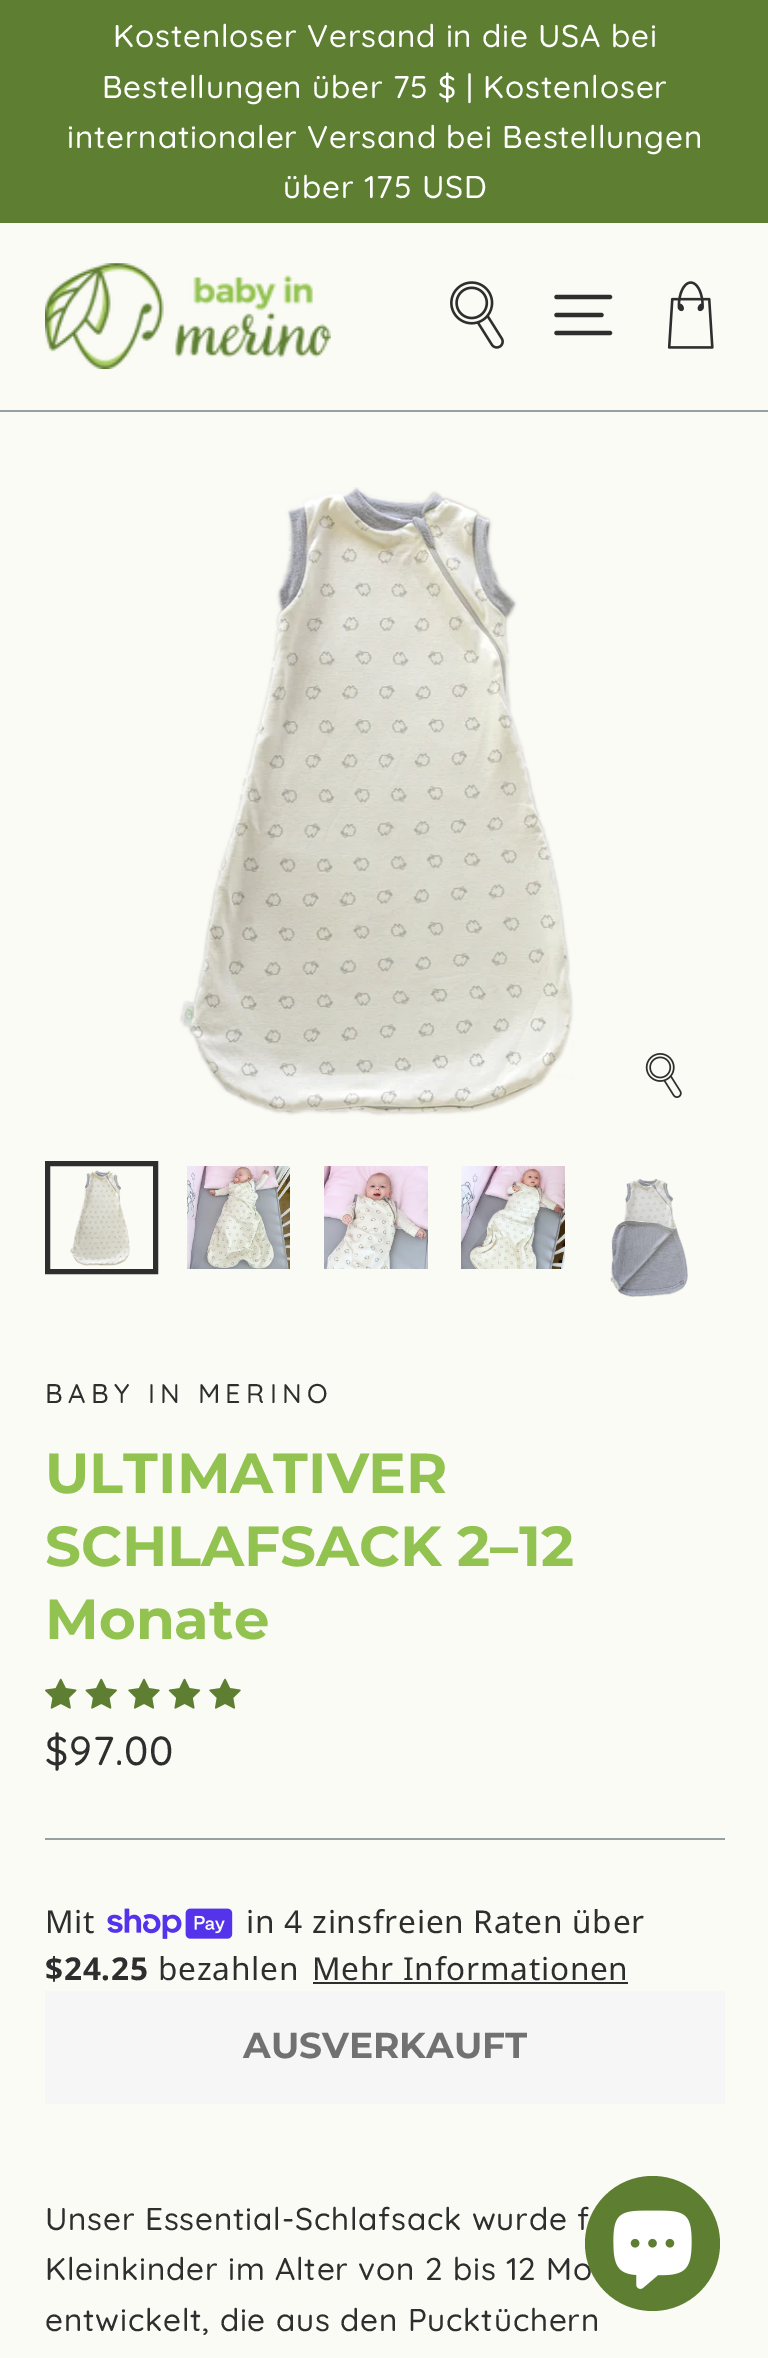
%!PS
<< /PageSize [768 2358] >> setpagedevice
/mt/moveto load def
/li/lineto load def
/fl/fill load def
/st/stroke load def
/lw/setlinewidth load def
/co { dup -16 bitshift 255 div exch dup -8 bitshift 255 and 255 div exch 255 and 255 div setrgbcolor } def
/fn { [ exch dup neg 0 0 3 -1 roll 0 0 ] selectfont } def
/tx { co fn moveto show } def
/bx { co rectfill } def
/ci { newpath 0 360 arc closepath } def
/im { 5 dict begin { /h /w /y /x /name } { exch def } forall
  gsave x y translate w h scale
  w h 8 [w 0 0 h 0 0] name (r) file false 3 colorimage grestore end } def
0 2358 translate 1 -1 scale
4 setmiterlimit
0 0 768 2358 16#FBFBF5 bx
0 0 768 223 16#5E7F32 bx
0 410 768 2 16#96A1A3 bx
(media/1.raw) 45 263 286 106 im
(media/2.raw) 450 281 54 68 im
16#2E2E2E co
4.2 lw
1 setlinecap
1 setlinejoin
556.5 297 mt 610 297 li 556.5 315 mt 601.5 315 li 556.5 333 mt 610 333 li st
(media/3.raw) 667 281 47 68 im
(media/4.raw) 179 487 395 629 im
(media/5.raw) 645 1053 37 45 im
5 lw
0 setlinecap
0 setlinejoin
47.5 1163.5 108 108 rectstroke
(media/6.raw) 70 1170 60 96 im
(media/7.raw) 187 1166 103 103 im
(media/8.raw) 324 1166 104 103 im
(media/9.raw) 461 1166 104 103 im
(media/10.raw) 610 1178 78 119 im
(media/11.raw) 45 1678 32 31 im
(media/12.raw) 85 1678 32 31 im
(media/13.raw) 128 1678 32 31 im
(media/14.raw) 168 1678 33 31 im
(media/13.raw) 209 1678 32 31 im
45 1838 680 2 16#96A1A3 bx
(media/15.raw) 107 1908 126 31 im
313 1982 315 2 16#2E2E2E bx
45 1991 680 113 16#F6F6F6 bx
/Quicksand-Medium 31.5 fn
16#FFFFFF co
113 47 mt .8 0 (Kostenloser Versand in die USA bei) ashow
102 98 mt .8 0 (Bestellungen über 75 $ | Kostenloser) ashow
67 148 mt .8 0 (internationaler Versand bei Bestellungen) ashow
283 198 mt .8 0 (über 175 USD) ashow
/Quicksand-Medium 27 fn
16#2E2E2E co
45 1403 mt 5.4 0 (BABY IN MERINO) ashow
(ULTIMATIVER) 45 1493 /Montserrat-Bold 56.25 16#92C24F tx
(SCHLAFSACK 2–12) 45 1566 /Montserrat-Bold 56.25 16#92C24F tx
(Monate) 45 1639 /Montserrat-Bold 56.25 16#92C24F tx
/Quicksand-Medium 40.5 fn
16#2E2E2E co
45 1765 mt .8 0 ($97.00) ashow
/NotoSans-Regular 31.5 fn
45 1933 mt .8 0 (Mit) ashow
246 1933 mt .8 0 (in 4 zinsfreien Raten über) ashow
/NotoSans-Bold 31.5 fn
45 1980 mt .8 0 ($24.25) ashow
/NotoSans-Regular 31.5 fn
158 1980 mt .8 0 (bezahlen) ashow
312 1980 mt .8 0 (Mehr Informationen) ashow
(AUSVERKAUFT) 243 2058 /Montserrat-Bold 36 16#717171 tx
/Quicksand-Medium 31.5 fn
16#2E2E2E co
45 2230 mt .8 0 (Unser Essential-Schlafsack wurde f) ashow
45 2280 mt .8 0 (Kleinkinder im Alter von 2 bis 12 Mo) ashow
45 2331 mt .8 0 (entwickelt, die aus den Pucktüchern) ashow
16#5E7F32 co
652.5 2243.5 67.5 ci fl
(media/16.raw) 613 2210 79 79 im
showpage
